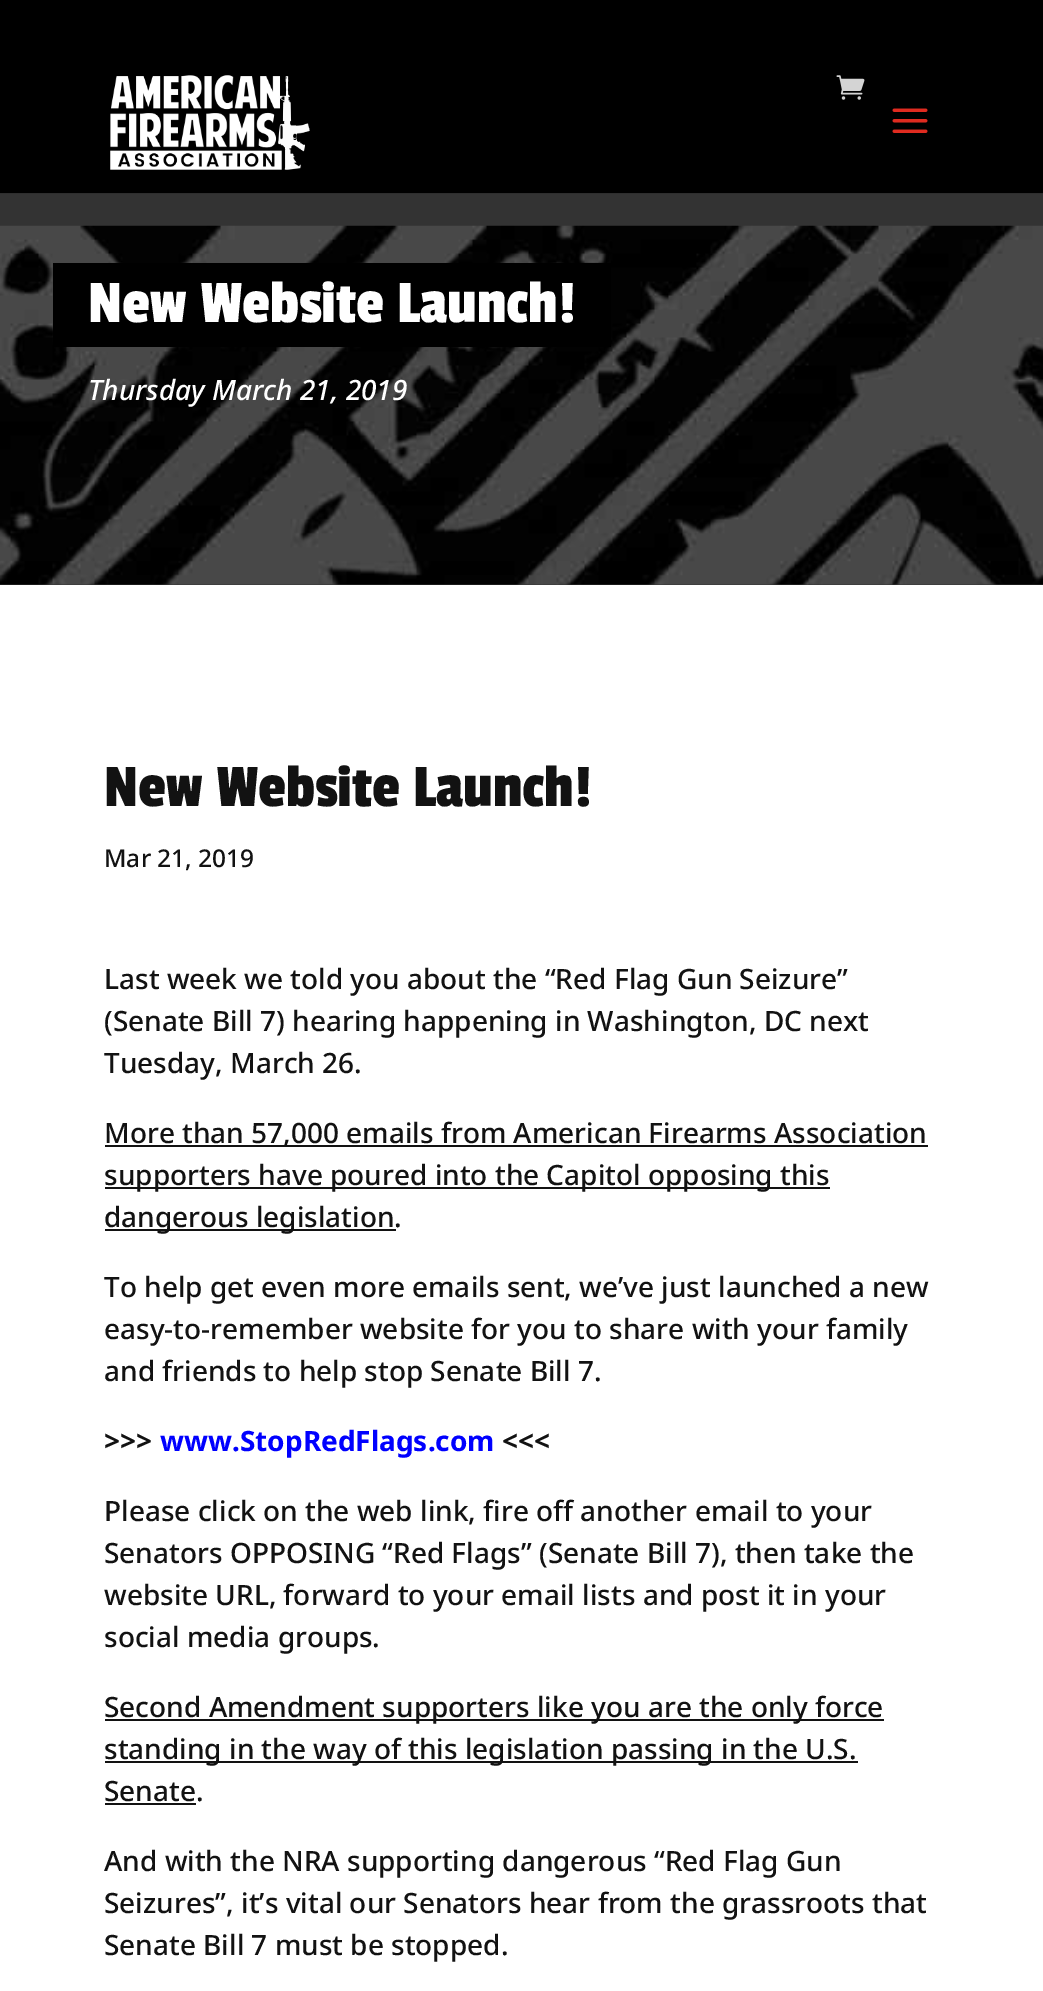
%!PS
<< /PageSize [1043 1991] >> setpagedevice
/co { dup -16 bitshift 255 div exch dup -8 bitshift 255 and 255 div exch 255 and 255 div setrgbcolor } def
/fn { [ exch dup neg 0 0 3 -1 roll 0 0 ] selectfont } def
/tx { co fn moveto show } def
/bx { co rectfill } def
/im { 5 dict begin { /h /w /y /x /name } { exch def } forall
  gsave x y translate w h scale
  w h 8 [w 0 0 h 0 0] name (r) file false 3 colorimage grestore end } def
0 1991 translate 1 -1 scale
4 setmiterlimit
0 0 1043 1991 16#333333 bx
0 193 1043 1 16#2E2E2E bx
0 0 1043 193 16#000000 bx
(media/1.raw) 110 75 200 95 im
(media/2.raw) 836 75 29 25 im
(media/3.raw) 892 108 36 25 im
(media/4.raw) 0 225 1043 360 im
53 263 558 84 16#000000 bx
0 585 1043 1406 16#FFFFFF bx
105 1145 823 2 16#121212 bx
105 1187 725 2 16#121212 bx
105 1229 291 2 16#121212 bx
105 1719 779 2 16#121212 bx
105 1761 753 2 16#121212 bx
105 1803 91 2 16#121212 bx
(New Website Launch!) 88 322 /PassionOne-Regular 63 16#FFFFFF tx
(Thursday March 21, 2019) 88 400 /NotoSans-MediumItalic 28 16#FFFFFF tx
(New Website Launch!) 104 806 /PassionOne-Regular 63 16#121212 tx
(Mar 21, 2019) 104 867 /NotoSans-Medium 24.5 16#121212 tx
(Last week we told you about the “Red Flag Gun Seizure”) 104 989 /NotoSans-Medium 28 16#121212 tx
(\(Senate Bill 7\) hearing happening in Washington, DC next) 104 1031 /NotoSans-Medium 28 16#121212 tx
(Tuesday, March 26.) 104 1073 /NotoSans-Medium 28 16#121212 tx
(More than 57,000 emails from American Firearms Association) 104 1143 /NotoSans-Medium 28 16#121212 tx
(supporters have poured into the Capitol opposing this) 104 1185 /NotoSans-Medium 28 16#121212 tx
(dangerous legislation.) 104 1227 /NotoSans-Medium 28 16#121212 tx
(To help get even more emails sent, we’ve just launched a new) 104 1297 /NotoSans-Medium 28 16#121212 tx
(easy-to-remember website for you to share with your family) 104 1339 /NotoSans-Medium 28 16#121212 tx
(and friends to help stop Senate Bill 7.) 104 1381 /NotoSans-Medium 28 16#121212 tx
(>>>) 104 1451 /NotoSans-Bold 28 16#121212 tx
(www.StopRedFlags.com) 160 1451 /NotoSans-Bold 28 16#0000FF tx
(<<<) 502 1451 /NotoSans-Bold 28 16#121212 tx
(Please click on the web link, fire off another email to your) 104 1521 /NotoSans-Medium 28 16#121212 tx
(Senators OPPOSING “Red Flags” \(Senate Bill 7\), then take the) 104 1563 /NotoSans-Medium 28 16#121212 tx
(website URL, forward to your email lists and post it in your) 104 1605 /NotoSans-Medium 28 16#121212 tx
(social media groups.) 104 1647 /NotoSans-Medium 28 16#121212 tx
(Second Amendment supporters like you are the only force) 104 1717 /NotoSans-Medium 28 16#121212 tx
(standing in the way of this legislation passing in the U.S.) 104 1759 /NotoSans-Medium 28 16#121212 tx
(Senate.) 104 1801 /NotoSans-Medium 28 16#121212 tx
(And with the NRA supporting dangerous “Red Flag Gun) 104 1871 /NotoSans-Medium 28 16#121212 tx
(Seizures”, it’s vital our Senators hear from the grassroots that) 104 1913 /NotoSans-Medium 28 16#121212 tx
(Senate Bill 7 must be stopped.) 104 1955 /NotoSans-Medium 28 16#121212 tx
showpage
